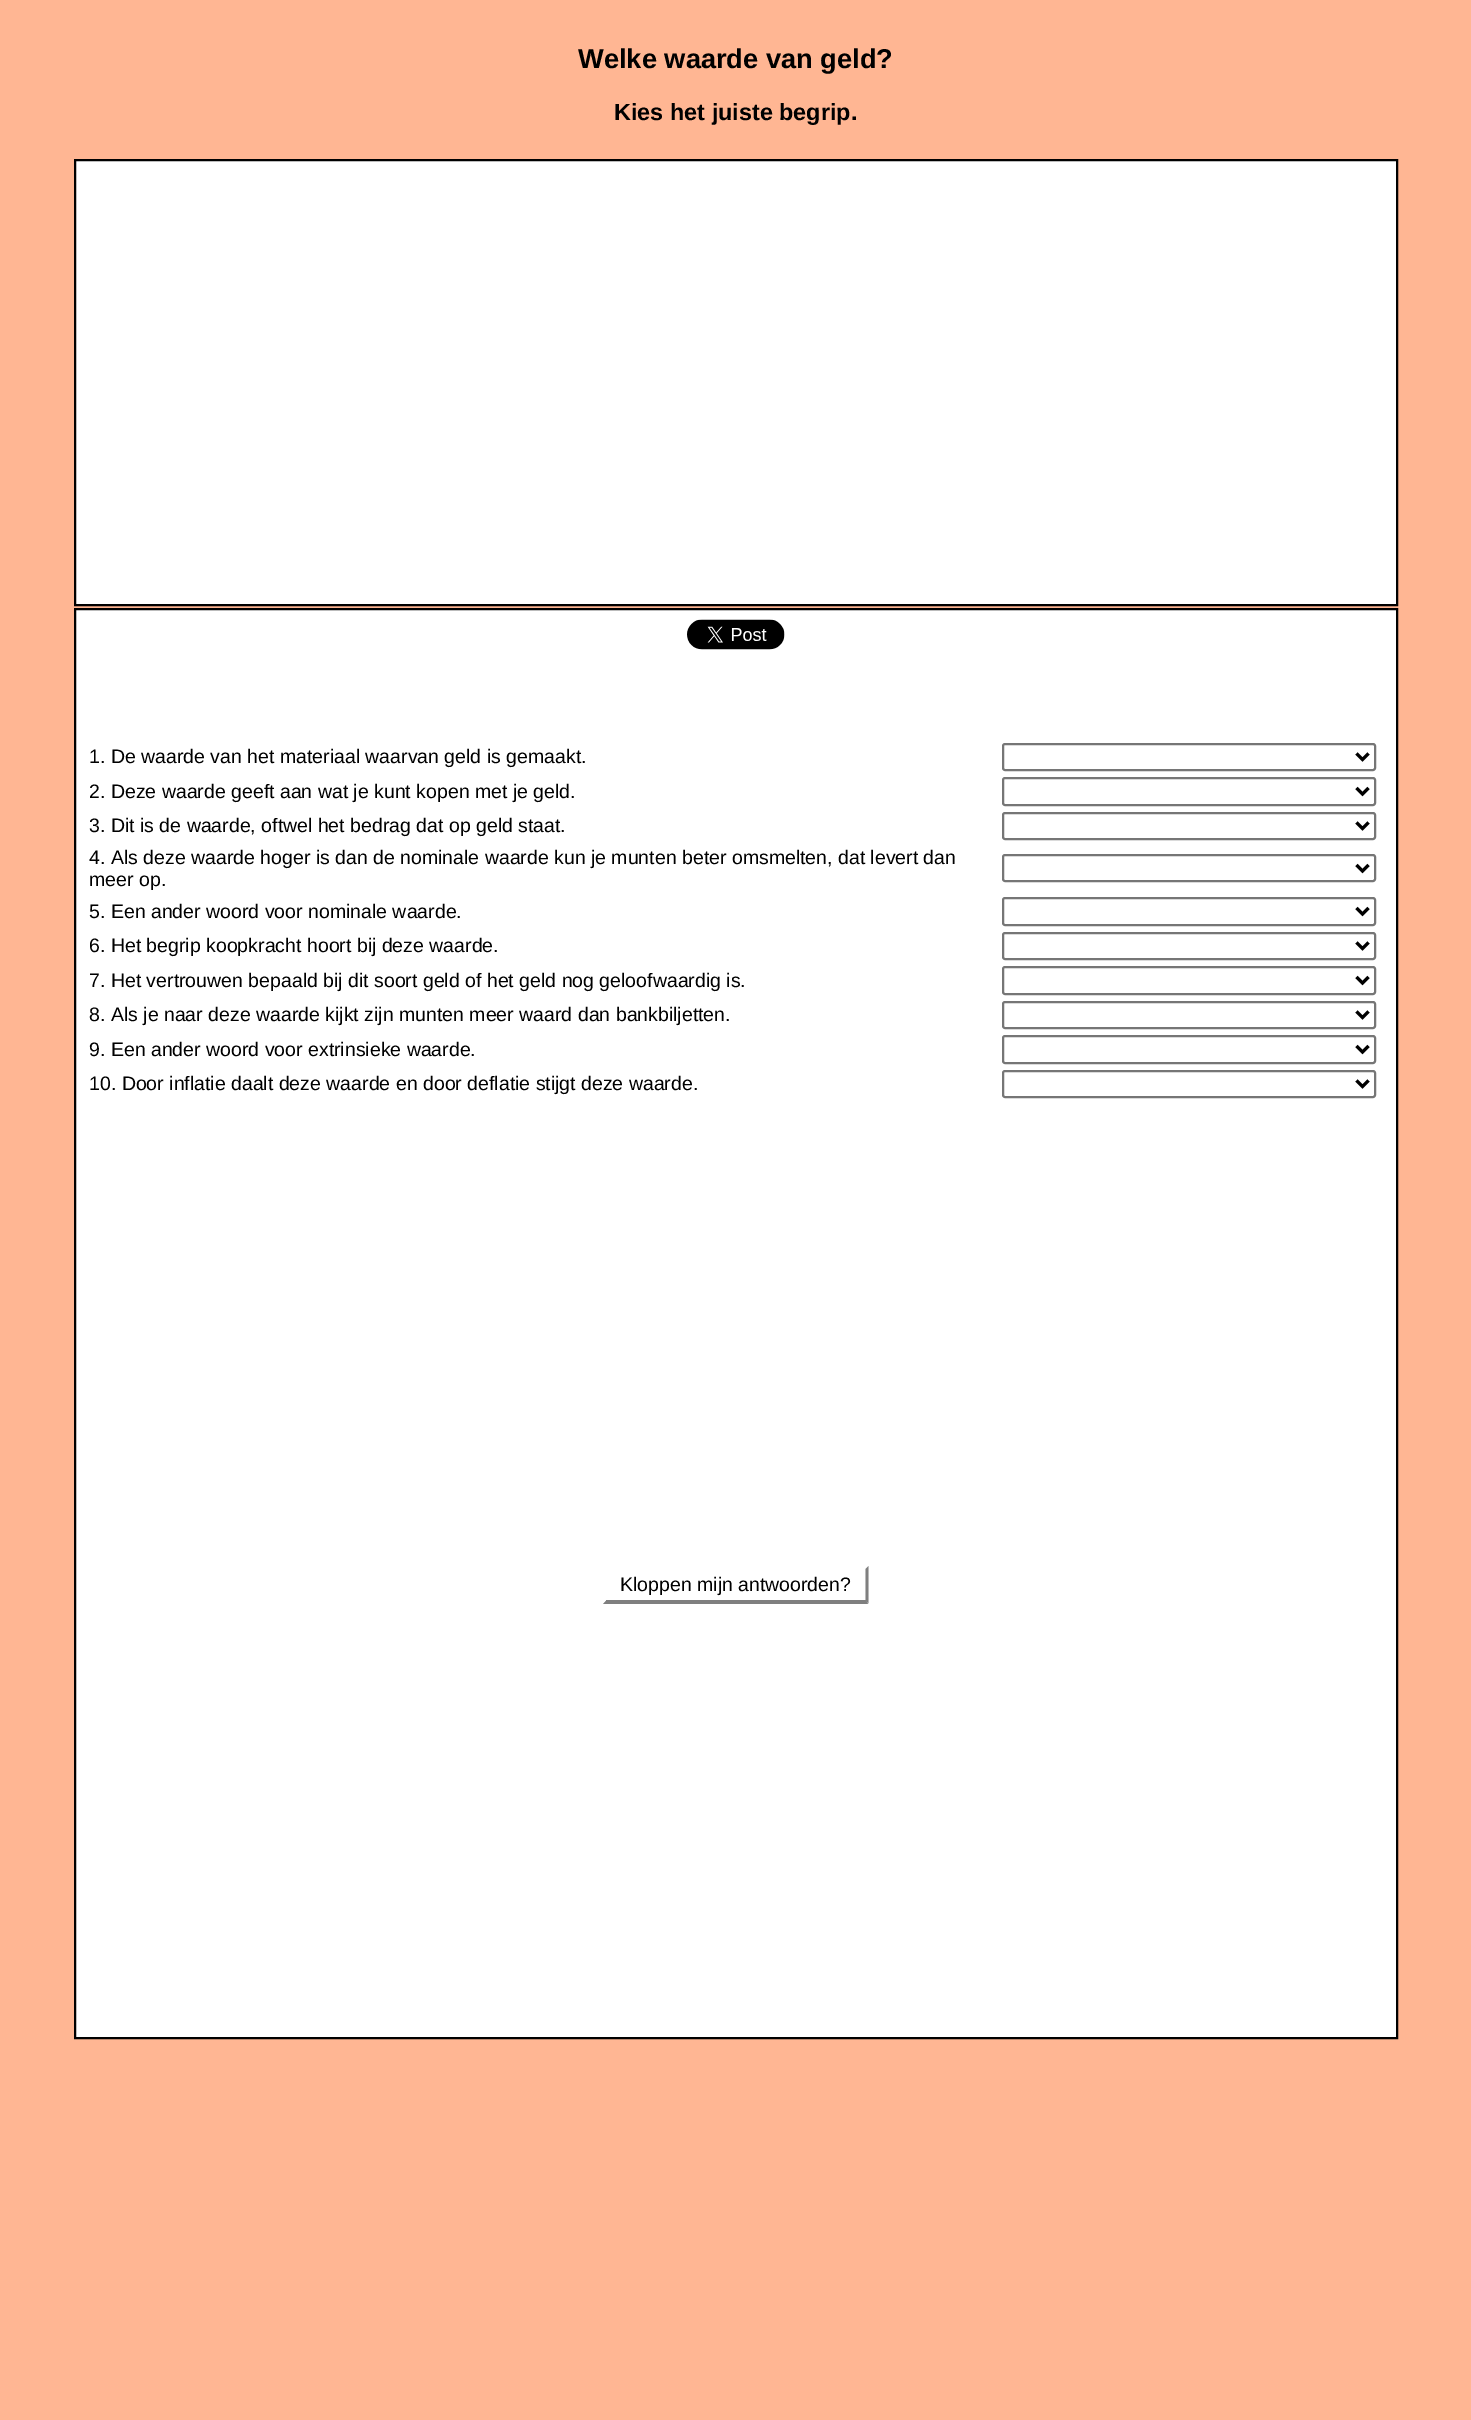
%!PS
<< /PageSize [1471 2420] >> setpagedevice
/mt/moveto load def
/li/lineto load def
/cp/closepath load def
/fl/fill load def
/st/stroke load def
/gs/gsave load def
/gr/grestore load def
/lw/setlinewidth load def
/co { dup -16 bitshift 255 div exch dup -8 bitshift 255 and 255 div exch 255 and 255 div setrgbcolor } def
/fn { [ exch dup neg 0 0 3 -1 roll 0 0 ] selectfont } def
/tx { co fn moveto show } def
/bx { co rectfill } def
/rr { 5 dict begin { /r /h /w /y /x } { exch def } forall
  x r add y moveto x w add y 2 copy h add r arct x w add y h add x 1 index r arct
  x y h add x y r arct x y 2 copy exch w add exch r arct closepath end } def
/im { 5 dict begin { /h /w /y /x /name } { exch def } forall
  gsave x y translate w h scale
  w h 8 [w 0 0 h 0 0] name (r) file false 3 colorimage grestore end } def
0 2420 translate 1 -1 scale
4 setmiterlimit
0 0 1471 2420 16#FFB693 bx
16#FFFFFF co
75 160 mt 1397 160 li 1397 605 li 75 605 li cp gs fl gr
16#000000 co
2 lw
st
16#FFFFFF co
75 609 mt 1397 609 li 1397 2038 li 75 2038 li cp gs fl gr
16#000000 co
st
(media/1.raw) 687 619 98 31 im
16#767676 co
1003 744 372 26 2 rr st
16#000000 co
3 lw
1356.5 753.5 mt 1362.5 759.5 li 1368.5 753.5 li st
16#767676 co
2 lw
1003 778 372 27 2 rr st
16#000000 co
3 lw
1356.5 788 mt 1362.5 794 li 1368.5 788 li st
16#767676 co
2 lw
1003 813 372 26 2 rr st
16#000000 co
3 lw
1356.5 822.5 mt 1362.5 828.5 li 1368.5 822.5 li st
16#767676 co
2 lw
1003 855 372 26 2 rr st
16#000000 co
3 lw
1356.5 865 mt 1362.5 871 li 1368.5 865 li st
16#767676 co
2 lw
1003 898 372 27 2 rr st
16#000000 co
3 lw
1356.5 908 mt 1362.5 914 li 1368.5 908 li st
16#767676 co
2 lw
1003 933 372 26 2 rr st
16#000000 co
3 lw
1356.5 942.5 mt 1362.5 948.5 li 1368.5 942.5 li st
16#767676 co
2 lw
1003 967 372 27 2 rr st
16#000000 co
3 lw
1356.5 977 mt 1362.5 983 li 1368.5 977 li st
16#767676 co
2 lw
1003 1002 372 26 2 rr st
16#000000 co
3 lw
1356.5 1011.5 mt 1362.5 1017.5 li 1368.5 1011.5 li st
16#767676 co
2 lw
1003 1036 372 27 2 rr st
16#000000 co
3 lw
1356.5 1046 mt 1362.5 1052 li 1368.5 1046 li st
16#767676 co
2 lw
1003 1071 372 26 2 rr st
16#000000 co
3 lw
1356.5 1080.5 mt 1362.5 1086.5 li 1368.5 1080.5 li st
16#7F7F7F co
868.5 1566 mt 868.5 1603.5 li 865.5 1600.5 li 865.5 1569 li cp fl
868 1604 mt 603 1604 li 606 1600 li 866 1600 li cp fl
16#FFFFFF co
603 1603.5 mt 603 1566 li 606 1569 li 606 1600.5 li cp fl
(Welke waarde van geld?) 578 68 /LiberationSans-Bold 27.25 16#000000 tx
(Kies het juiste begrip.) 614 120 /LiberationSans-Bold 23.4 16#000000 tx
(1. De waarde van het materiaal waarvan geld is gemaakt.) 89 763 /LiberationSans-Regular 19.5 16#000000 tx
(2. Deze waarde geeft aan wat je kunt kopen met je geld.) 89 798 /LiberationSans-Regular 19.5 16#000000 tx
(3. Dit is de waarde, oftwel het bedrag dat op geld staat.) 89 832 /LiberationSans-Regular 19.5 16#000000 tx
(4. Als deze waarde hoger is dan de nominale waarde kun je munten beter omsmelten, dat levert dan) 89 864 /LiberationSans-Regular 19.5 16#000000 tx
(meer op.) 89 886 /LiberationSans-Regular 19.5 16#000000 tx
(5. Een ander woord voor nominale waarde.) 89 918 /LiberationSans-Regular 19.5 16#000000 tx
(6. Het begrip koopkracht hoort bij deze waarde.) 89 952 /LiberationSans-Regular 19.5 16#000000 tx
(7. Het vertrouwen bepaald bij dit soort geld of het geld nog geloofwaardig is.) 89 987 /LiberationSans-Regular 19.5 16#000000 tx
(8. Als je naar deze waarde kijkt zijn munten meer waard dan bankbiljetten.) 89 1021 /LiberationSans-Regular 19.5 16#000000 tx
(9. Een ander woord voor extrinsieke waarde.) 89 1056 /LiberationSans-Regular 19.5 16#000000 tx
(10. Door inflatie daalt deze waarde en door deflatie stijgt deze waarde.) 89 1090 /LiberationSans-Regular 19.5 16#000000 tx
(Kloppen mijn antwoorden?) 620 1591 /LiberationSans-Regular 19.5 16#000000 tx
showpage
